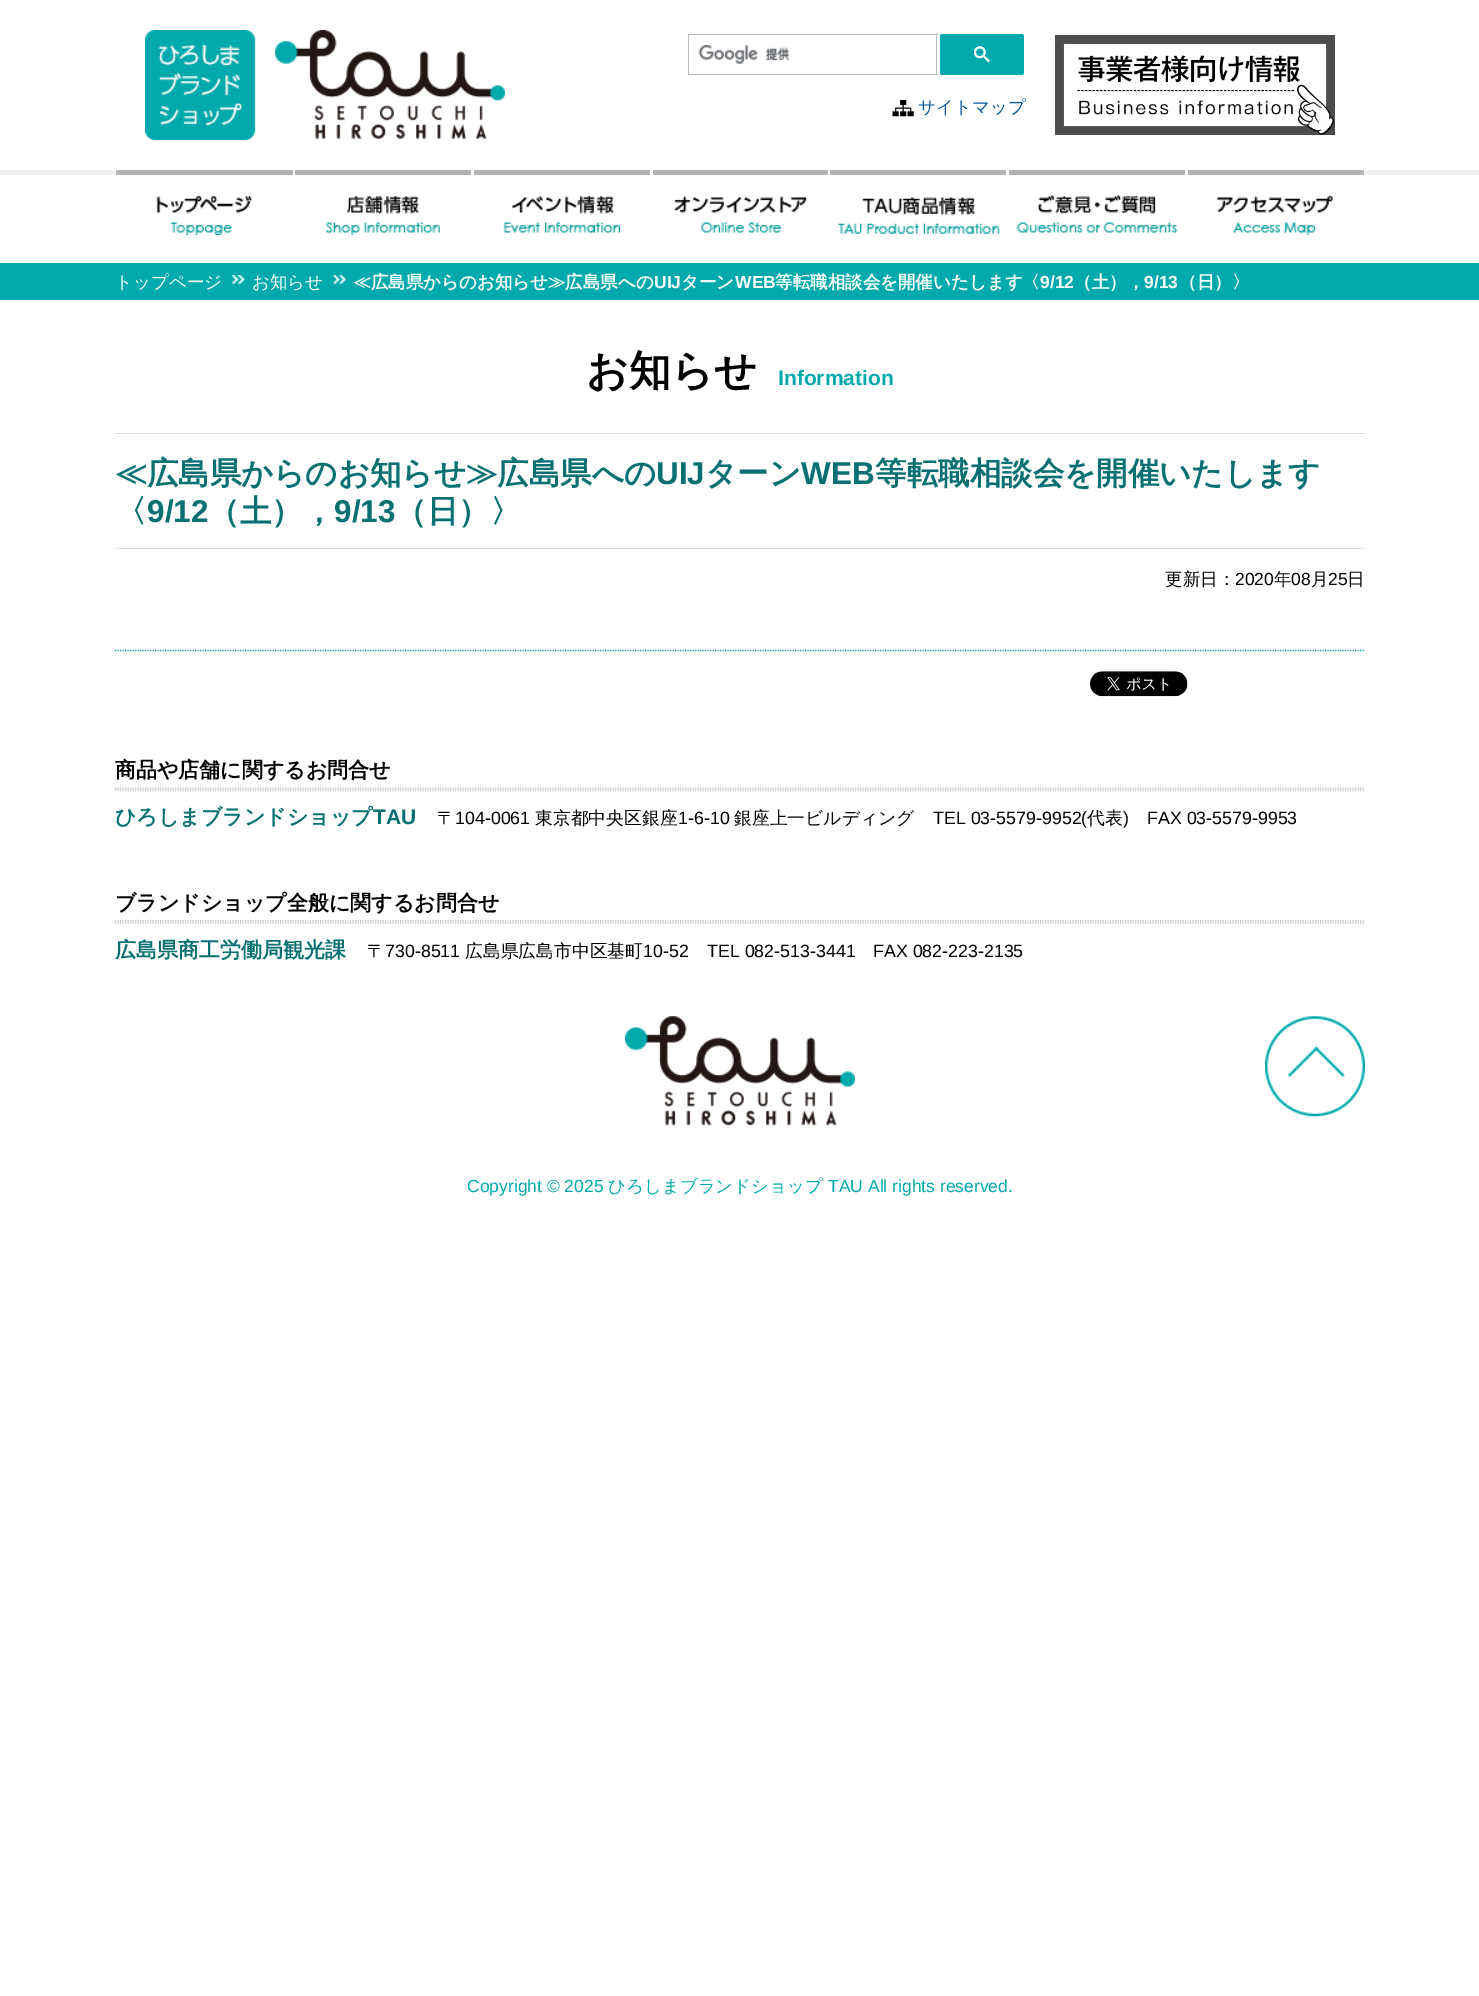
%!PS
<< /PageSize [1479 1996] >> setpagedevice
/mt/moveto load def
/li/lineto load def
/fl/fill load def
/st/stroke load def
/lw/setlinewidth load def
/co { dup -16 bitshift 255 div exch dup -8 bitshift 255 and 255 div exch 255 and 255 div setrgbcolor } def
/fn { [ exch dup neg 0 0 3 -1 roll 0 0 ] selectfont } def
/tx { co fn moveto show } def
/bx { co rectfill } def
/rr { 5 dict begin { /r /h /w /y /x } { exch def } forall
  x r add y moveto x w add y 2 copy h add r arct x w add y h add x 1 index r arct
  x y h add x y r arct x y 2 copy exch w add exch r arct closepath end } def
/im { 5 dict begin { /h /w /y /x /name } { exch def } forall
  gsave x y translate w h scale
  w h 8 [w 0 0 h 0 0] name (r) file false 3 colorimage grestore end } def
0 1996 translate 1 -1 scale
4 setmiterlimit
0 0 1479 1996 16#FFFFFF bx
(media/1.raw) 145 30 360 110 im
688 34 250 1 16#BBBBBB bx
936 34 1 41 16#BBBBBB bx
688 74 250 1 16#BBBBBB bx
688 34 1 41 16#BBBBBB bx
(media/2.raw) 698 45 92 19 im
16#00A9AC co
940 34 84 41 2.5 rr fl
(media/3.raw) 974 46 16 17 im
(media/4.raw) 892 100 22 17 im
(media/5.raw) 1055 35 280 100 im
0 170 1479 5 16#EEEEEE bx
115 170 1250 5 16#FFFFFF bx
116 170 177 5 16#B2B2B2 bx
(media/6.raw) 156 195 96 40 im
295 170 176 5 16#B2B2B2 bx
(media/7.raw) 326 196 114 39 im
474 170 176 5 16#B2B2B2 bx
(media/8.raw) 503 196 117 37 im
653 170 175 5 16#B2B2B2 bx
(media/9.raw) 673 196 134 37 im
830 170 176 5 16#B2B2B2 bx
(media/10.raw) 837 197 163 37 im
1009 170 176 5 16#B2B2B2 bx
(media/11.raw) 1017 195 161 38 im
1188 170 176 5 16#B2B2B2 bx
(media/12.raw) 1217 195 117 40 im
0 263 1479 37 16#00A9AC bx
(media/13.raw) 232 275 13 9 im
(media/14.raw) 333 275 14 9 im
115 433 1250 1 16#DDDDDD bx
16#00A9AC co
1.2 lw
[1.25 1.25] 0 setdash
115 650.5 mt 1365 650.5 li st
115 548 1250 1 16#DDDDDD bx
(media/15.raw) 1090 671 98 26 im
(media/16.raw) 115 787 1250 5 im
(media/17.raw) 115 920 1250 4 im
(media/18.raw) 625 1016 230 110 im
(media/19.raw) 1265 1016 100 101 im
(サイトマップ) 918 113 /WenQuanYiZenHei-Medium 17.5 16#02579F tx
(トップページ) 115 288 /WenQuanYiZenHei-Medium 17.5 16#FFFFFF tx
(お知らせ) 252 288 /WenQuanYiZenHei-Medium 17.5 16#FFFFFF tx
(≪広島県からのお知らせ≫広島県への) 353 288 /WenQuanYiZenHei-Bold 17.5 16#FFFFFF tx
(UIJ) 654 288 /LiberationSans-Bold 17.5 16#FFFFFF tx
(ターン) 681 288 /WenQuanYiZenHei-Bold 17.5 16#FFFFFF tx
(WEB) 735 288 /LiberationSans-Bold 17.5 16#FFFFFF tx
(等転職相談会を開催いたします〈) 775 288 /WenQuanYiZenHei-Bold 17.5 16#FFFFFF tx
(9/12) 1040 288 /LiberationSans-Bold 17.5 16#FFFFFF tx
(（土），) 1074 288 /WenQuanYiZenHei-Bold 17.5 16#FFFFFF tx
(9/13) 1144 288 /LiberationSans-Bold 17.5 16#FFFFFF tx
(（日）〉) 1179 288 /WenQuanYiZenHei-Bold 17.5 16#FFFFFF tx
(お知らせ) 586 385 /WenQuanYiZenHei-Bold 42 16#000000 tx
(Information) 778 385 /LiberationSans-Bold 21 16#00A9AC tx
(≪広島県からのお知らせ≫広島県への) 115 484 /WenQuanYiZenHei-Bold 31.5 16#077072 tx
(UIJ) 656 484 /LiberationSans-Bold 31.5 16#077072 tx
(ターン) 705 484 /WenQuanYiZenHei-Bold 31.5 16#077072 tx
(WEB) 801 484 /LiberationSans-Bold 31.5 16#077072 tx
(等転職相談会を開催いたします) 875 484 /WenQuanYiZenHei-Bold 31.5 16#077072 tx
(〈) 115 522 /WenQuanYiZenHei-Bold 31.5 16#077072 tx
(9/12) 147 522 /LiberationSans-Bold 31.5 16#077072 tx
(（土），) 208 522 /WenQuanYiZenHei-Bold 31.5 16#077072 tx
(9/13) 334 522 /LiberationSans-Bold 31.5 16#077072 tx
(（日）〉) 395 522 /WenQuanYiZenHei-Bold 31.5 16#077072 tx
(更新日：) 1165 585 /WenQuanYiZenHei-Medium 17.5 16#000000 tx
(2020) 1235 585 /LiberationSans-Regular 17.5 16#000000 tx
(年) 1274 585 /WenQuanYiZenHei-Medium 17.5 16#000000 tx
(08) 1291 585 /LiberationSans-Regular 17.5 16#000000 tx
(月) 1311 585 /WenQuanYiZenHei-Medium 17.5 16#000000 tx
(25) 1328 585 /LiberationSans-Regular 17.5 16#000000 tx
(日) 1347 585 /WenQuanYiZenHei-Medium 17.5 16#000000 tx
(商品や店舗に関するお問合せ) 115 777 /WenQuanYiZenHei-Bold 21 16#000000 tx
(ひろしまブランドショップ) 115 824 /WenQuanYiZenHei-Bold 21 16#077072 tx
(TAU) 373 824 /LiberationSans-Bold 21 16#077072 tx
(〒) 437 824 /WenQuanYiZenHei-Medium 17.8 16#000000 tx
(104-0061) 455 824 /LiberationSans-Regular 17.8 16#000000 tx
(東京都中央区銀座) 535 824 /WenQuanYiZenHei-Medium 17.8 16#000000 tx
(1-6-10) 678 824 /LiberationSans-Regular 17.8 16#000000 tx
(銀座上一ビルディング) 734 824 /WenQuanYiZenHei-Medium 17.8 16#000000 tx
(TEL 03-5579-9952\() 933 824 /LiberationSans-Regular 17.8 16#000000 tx
(代表) 1087 824 /WenQuanYiZenHei-Medium 17.8 16#000000 tx
(\)) 1123 824 /LiberationSans-Regular 17.8 16#000000 tx
(FAX 03-5579-9953) 1147 824 /LiberationSans-Regular 17.8 16#000000 tx
(ブランドショップ全般に関するお問合せ) 115 910 /WenQuanYiZenHei-Bold 21 16#000000 tx
(広島県商工労働局観光課) 115 957 /WenQuanYiZenHei-Bold 21 16#077072 tx
(〒) 367 957 /WenQuanYiZenHei-Medium 17.8 16#000000 tx
(730-8511) 385 957 /LiberationSans-Regular 17.8 16#000000 tx
(広島県広島市中区基町) 465 957 /WenQuanYiZenHei-Medium 17.8 16#000000 tx
(10-52) 643 957 /LiberationSans-Regular 17.8 16#000000 tx
(TEL 082-513-3441) 707 957 /LiberationSans-Regular 17.8 16#000000 tx
(FAX 082-223-2135) 873 957 /LiberationSans-Regular 17.8 16#000000 tx
(Copyright © 2025) 467 1192 /LiberationSans-Regular 17.5 16#00A9AC tx
(ひろしまブランドショップ) 608 1192 /WenQuanYiZenHei-Medium 17.5 16#00A9AC tx
(TAU All rights reserved.) 828 1192 /LiberationSans-Regular 17.5 16#00A9AC tx
showpage
